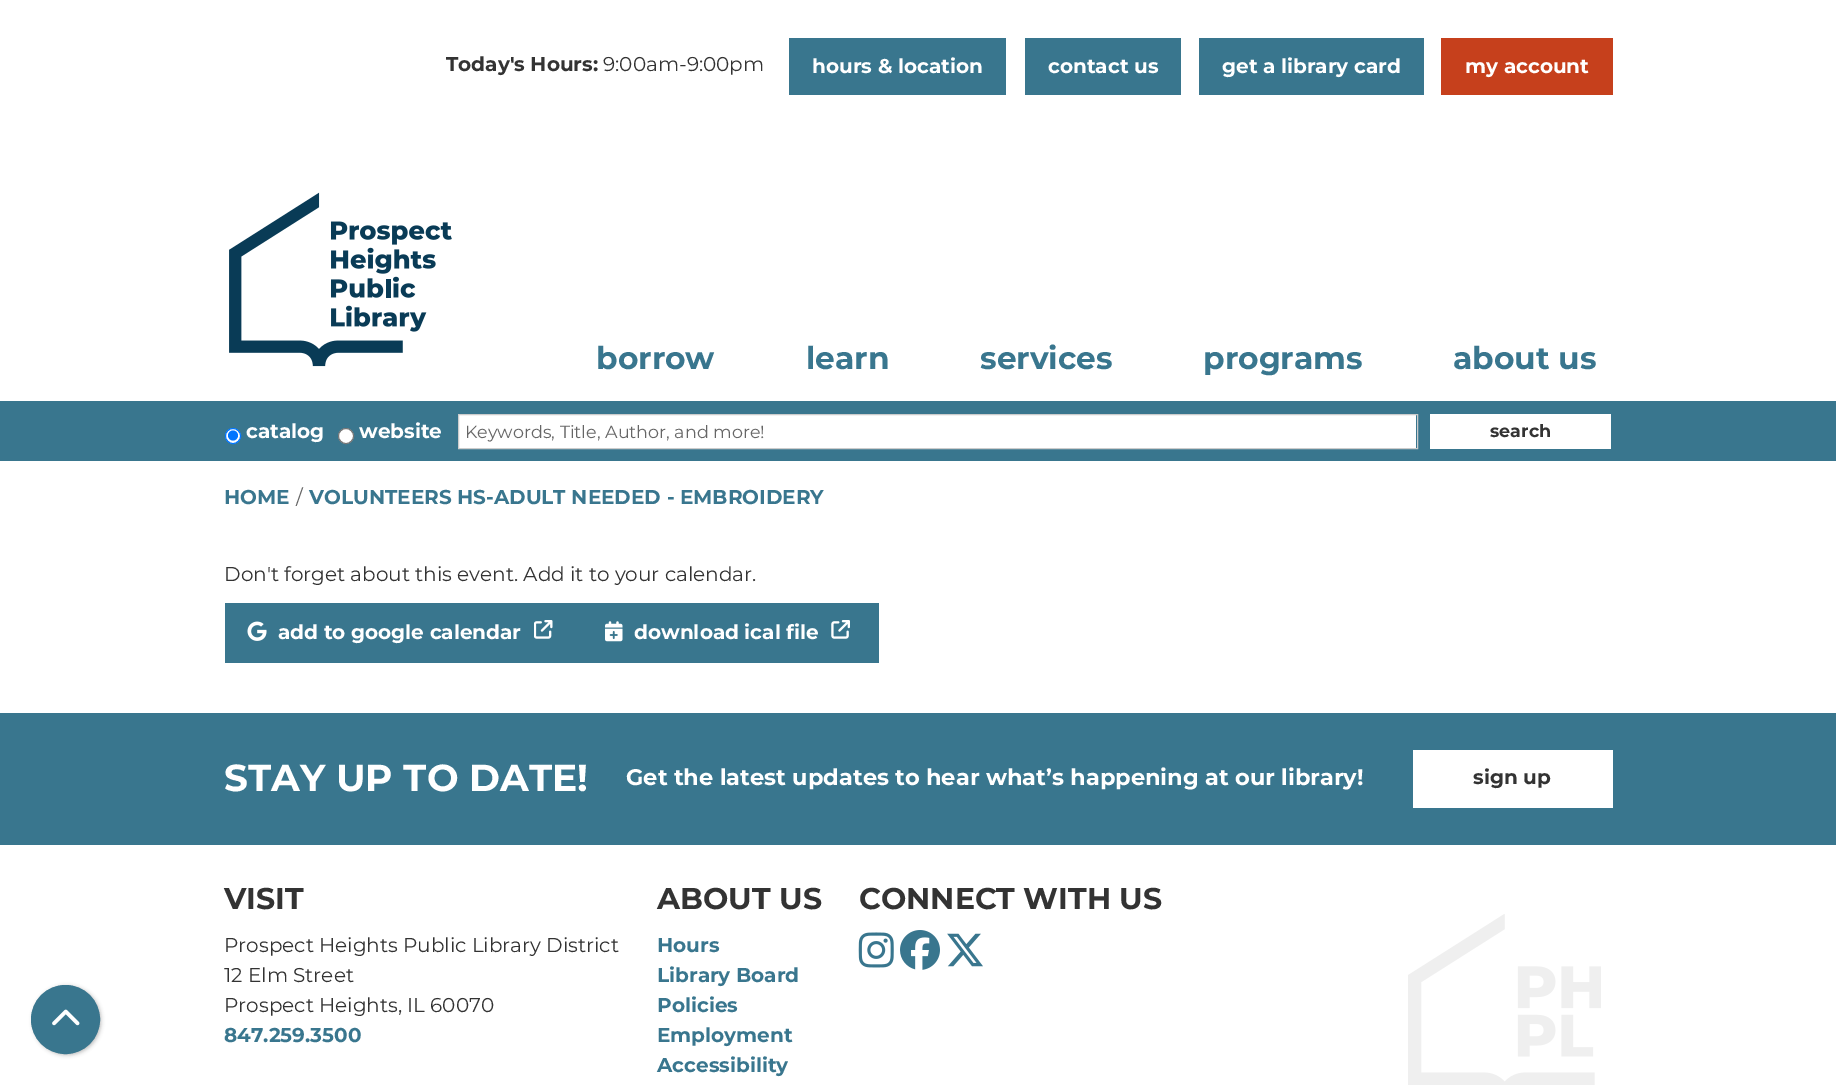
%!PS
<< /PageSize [1836 1085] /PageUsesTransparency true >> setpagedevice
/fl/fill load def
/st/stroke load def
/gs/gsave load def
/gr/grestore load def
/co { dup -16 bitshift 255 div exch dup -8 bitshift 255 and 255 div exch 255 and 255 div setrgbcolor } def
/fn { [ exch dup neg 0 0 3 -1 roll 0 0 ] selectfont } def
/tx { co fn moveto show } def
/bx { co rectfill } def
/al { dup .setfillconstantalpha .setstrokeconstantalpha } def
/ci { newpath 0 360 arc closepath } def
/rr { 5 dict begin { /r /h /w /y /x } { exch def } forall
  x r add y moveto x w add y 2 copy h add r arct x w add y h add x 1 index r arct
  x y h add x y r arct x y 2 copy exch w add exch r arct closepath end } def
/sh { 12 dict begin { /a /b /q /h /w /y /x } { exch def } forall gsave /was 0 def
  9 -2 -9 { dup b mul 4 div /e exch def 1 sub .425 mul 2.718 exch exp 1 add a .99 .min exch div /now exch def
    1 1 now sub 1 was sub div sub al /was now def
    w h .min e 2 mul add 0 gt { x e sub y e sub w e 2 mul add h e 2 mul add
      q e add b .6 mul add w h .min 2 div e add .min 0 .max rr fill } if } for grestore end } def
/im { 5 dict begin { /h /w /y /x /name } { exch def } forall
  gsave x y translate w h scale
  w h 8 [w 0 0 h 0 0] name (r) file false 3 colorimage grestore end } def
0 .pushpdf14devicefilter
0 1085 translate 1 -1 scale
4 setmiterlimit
0 0 1836 1085 16#FFFFFF bx
789 38 217 57 16#39768E bx
1025 38 156 57 16#39768E bx
1199 38 225 57 16#39768E bx
1441 38 172 57 16#C6401C bx
(media/1.raw) 229 192 223 175 im
0 401 1836 60 16#39768E bx
16#FFFFFF co
233 436 7.5 ci gs fl gr
16#0075FF co
st
233 435.5 5 ci fl
16#FFFFFF co
346 436 7.5 ci gs fl gr
16#767676 co
st
459 415 957 33 16#FFFFFF bx
16#CCCCCC co
458.5 414.5 959 34 rectstroke
1430 414 181 35 16#FFFFFF bx
225 603 654 60 16#39768E bx
(media/2.raw) 247 621 20 20 im
(media/3.raw) 534 620 19 19 im
(media/4.raw) 605 621 18 21 im
(media/5.raw) 831 620 19 19 im
0 713 1836 132 16#39768E bx
1413 750 200 58 16#FFFFFF bx
(media/6.raw) 1408 914 193 171 im
16#000000 co
33 986 68 69 34 2 .25 sh
16#39768E co
65.5 1019.5 34 ci gs fl gr
st
(media/7.raw) 52 1009 28 17 im
(media/8.raw) 858 932 36 36 im
(media/9.raw) 900 930 40 40 im
(media/10.raw) 947 933 36 34 im
(Today's Hours:) 446 71 /Montserrat-Bold 20 16#333333 tx
(9:00am-9:00pm) 603 71 /Montserrat-Regular 20 16#333333 tx
(hours & location) 812 73 /Montserrat-Bold 20 16#FFFFFF tx
(contact us) 1048 73 /Montserrat-Bold 20 16#FFFFFF tx
(get a library card) 1222 73 /Montserrat-Bold 20 16#FFFFFF tx
(my account) 1465 73 /Montserrat-Bold 20 16#FFFFFF tx
(borrow) 596 369 /Montserrat-Bold 31.25 16#39768E tx
(learn) 806 369 /Montserrat-Bold 31.25 16#39768E tx
(services) 980 369 /Montserrat-Bold 31.25 16#39768E tx
(programs) 1203 369 /Montserrat-Bold 31.25 16#39768E tx
(about us) 1453 369 /Montserrat-Bold 31.25 16#39768E tx
(catalog) 246 438 /Montserrat-Bold 20 16#FFFFFF tx
(website) 359 438 /Montserrat-Bold 20 16#FFFFFF tx
(Keywords, Title, Author, and more!) 465 438 /Montserrat-Regular 17.5 16#666666 tx
(search) 1490 437 /Montserrat-Bold 17.5 16#333333 tx
(HOME) 224 504 /Montserrat-Bold 20 16#39768E tx
(/) 296 504 /Montserrat-Regular 20 16#666666 tx
(VOLUNTEERS HS-ADULT NEEDED - EMBROIDERY) 309 504 /Montserrat-Bold 20 16#39768E tx
(Don't forget about this event. Add it to your calendar.) 224 581 /Montserrat-Regular 20 16#333333 tx
(add to google calendar) 278 639 /Montserrat-Bold 20 16#FFFFFF tx
(download ical file) 634 639 /Montserrat-Bold 20 16#FFFFFF tx
(STAY UP TO DATE!) 224 791 /Montserrat-Bold 37.5 16#FFFFFF tx
(Get the latest updates to hear what’s happening at our library!) 626 785 /Montserrat-Bold 22.5 16#FFFFFF tx
(sign up) 1473 784 /Montserrat-Bold 20 16#333333 tx
(VISIT) 224 909 /Montserrat-Bold 30 16#333333 tx
(Prospect Heights Public Library District) 224 952 /Montserrat-Regular 20 16#333333 tx
(12 Elm Street) 224 982 /Montserrat-Regular 20 16#333333 tx
(Prospect Heights, IL 60070) 224 1012 /Montserrat-Regular 20 16#333333 tx
(847.259.3500) 224 1042 /Montserrat-Bold 20 16#39768E tx
(ABOUT US) 657 909 /Montserrat-Bold 30 16#333333 tx
(Hours) 657 952 /Montserrat-Bold 20 16#39768E tx
(Library Board) 657 982 /Montserrat-Bold 20 16#39768E tx
(Policies) 657 1012 /Montserrat-Bold 20 16#39768E tx
(Employment) 657 1042 /Montserrat-Bold 20 16#39768E tx
(Accessibility) 657 1072 /Montserrat-Bold 20 16#39768E tx
(CONNECT WITH US) 859 909 /Montserrat-Bold 30 16#333333 tx
.poppdf14devicefilter showpage
